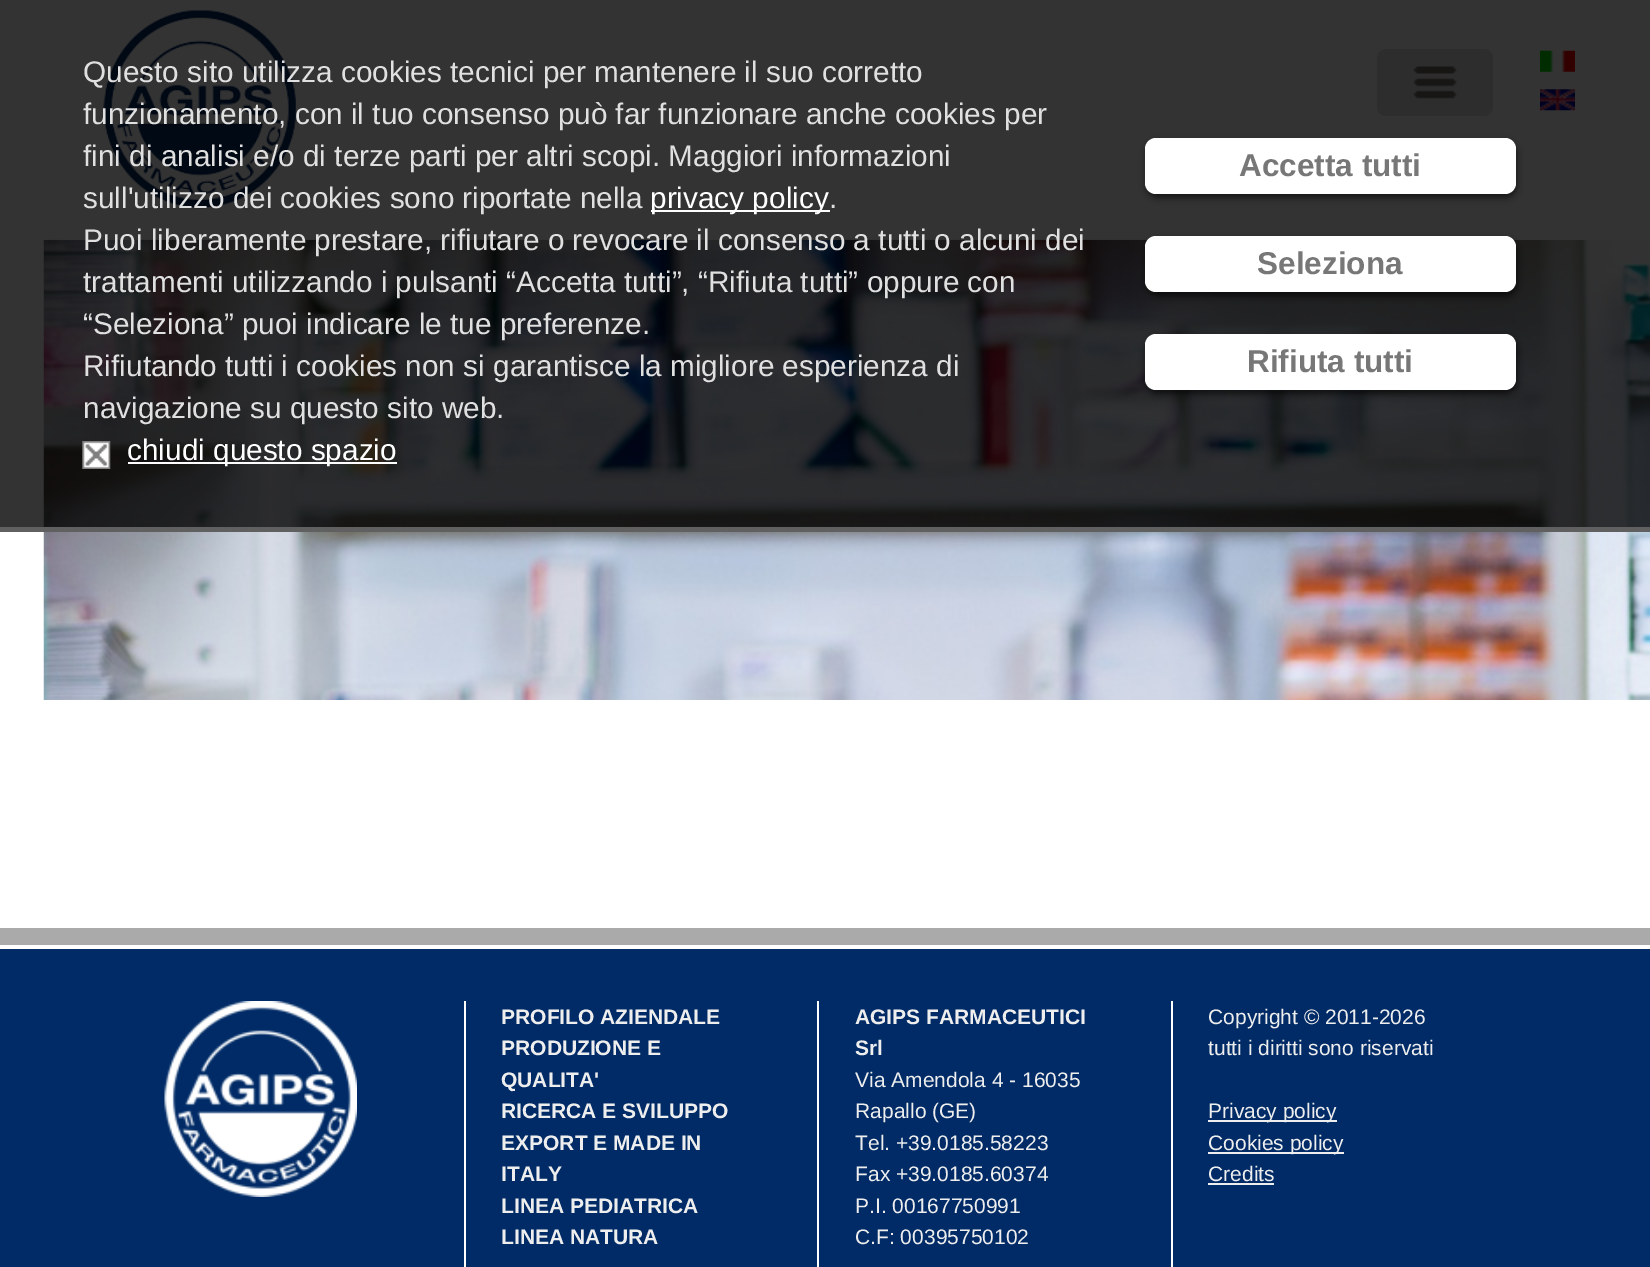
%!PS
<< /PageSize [1650 1267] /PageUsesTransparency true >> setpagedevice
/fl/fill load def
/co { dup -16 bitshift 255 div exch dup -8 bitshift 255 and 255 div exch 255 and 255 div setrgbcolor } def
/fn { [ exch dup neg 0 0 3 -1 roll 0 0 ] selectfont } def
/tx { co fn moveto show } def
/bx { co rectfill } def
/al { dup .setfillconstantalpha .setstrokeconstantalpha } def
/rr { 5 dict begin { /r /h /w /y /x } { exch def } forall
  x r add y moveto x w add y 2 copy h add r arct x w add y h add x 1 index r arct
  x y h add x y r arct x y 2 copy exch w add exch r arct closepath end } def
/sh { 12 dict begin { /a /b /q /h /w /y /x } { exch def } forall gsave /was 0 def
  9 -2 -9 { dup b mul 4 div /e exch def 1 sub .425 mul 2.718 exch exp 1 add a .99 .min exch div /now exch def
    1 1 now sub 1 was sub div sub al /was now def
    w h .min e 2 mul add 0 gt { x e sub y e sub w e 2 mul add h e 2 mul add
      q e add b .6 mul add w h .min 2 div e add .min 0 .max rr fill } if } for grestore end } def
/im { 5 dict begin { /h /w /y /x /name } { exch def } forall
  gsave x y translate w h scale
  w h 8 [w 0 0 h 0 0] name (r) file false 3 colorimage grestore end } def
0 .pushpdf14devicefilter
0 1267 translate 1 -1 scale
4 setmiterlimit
0 0 1650 1267 16#FFFFFF bx
(media/1.raw) 103 10 193 199 im
(media/2.raw) 43 239 1607 461 im
16#E3E3E3 co
1377 49 116 67 9 rr fl
(media/4.raw) 1413 66 44 33 im
(media/5.raw) 1540 50 35 22 im
(media/6.raw) 1540 89 35 22 im
0.8 al
0 0 1650 527 16#000000 bx
1 al
0 527 1650 5 16#606060 bx
651 210 179 2 16#FFFFFF bx
(media/3.raw) 82 441 29 28 im
128 462 269 2 16#FFFFFF bx
16#000000 co
1146 142 371 56 11 3.5 .6 sh
16#FFFFFF co
1145 138 371 56 11 rr fl
16#000000 co
1146 240 371 56 11 3.5 .6 sh
16#FFFFFF co
1145 236 371 56 11 rr fl
16#000000 co
1146 338 371 56 11 3.5 .6 sh
16#FFFFFF co
1145 334 371 56 11 rr fl
0 928 1650 17 16#AAAAAA bx
0 949 1650 318 16#002B66 bx
(media/7.raw) 164 1001 193 196 im
464 1001 2 266 16#FFFFFF bx
817 1001 2 266 16#FFFFFF bx
1171 1001 2 266 16#FFFFFF bx
1208 1120 129 2 16#EEEEEE bx
1208 1152 136 2 16#EEEEEE bx
1208 1183 66 2 16#EEEEEE bx
(Questo sito utilizza cookies tecnici per mantenere il suo corretto) 83 82 /LiberationSans-Regular 29.75 16#E0E0E0 tx
(funzionamento, con il tuo consenso può far funzionare anche cookies per) 83 124 /LiberationSans-Regular 29.75 16#E0E0E0 tx
(fini di analisi e/o di terze parti per altri scopi. Maggiori informazioni) 83 166 /LiberationSans-Regular 29.75 16#E0E0E0 tx
(sull'utilizzo dei cookies sono riportate nella) 83 208 /LiberationSans-Regular 29.75 16#E0E0E0 tx
(privacy policy) 650 208 /LiberationSans-Regular 29.75 16#FFFFFF tx
(.) 829 208 /LiberationSans-Regular 29.75 16#E0E0E0 tx
(Puoi liberamente prestare, rifiutare o revocare il consenso a tutti o alcuni dei) 83 250 /LiberationSans-Regular 29.75 16#E0E0E0 tx
(trattamenti utilizzando i pulsanti “Accetta tutti”, “Rifiuta tutti” oppure con) 83 292 /LiberationSans-Regular 29.75 16#E0E0E0 tx
(“Seleziona” puoi indicare le tue preferenze.) 83 334 /LiberationSans-Regular 29.75 16#E0E0E0 tx
(Rifiutando tutti i cookies non si garantisce la migliore esperienza di) 83 376 /LiberationSans-Regular 29.75 16#E0E0E0 tx
(navigazione su questo sito web.) 83 418 /LiberationSans-Regular 29.75 16#E0E0E0 tx
(chiudi questo spazio) 127 460 /LiberationSans-Regular 29.75 16#FFFFFF tx
(Accetta tutti) 1239 176 /LiberationSans-Bold 31.5 16#777777 tx
(Seleziona) 1257 274 /LiberationSans-Bold 31.5 16#777777 tx
(Rifiuta tutti) 1247 372 /LiberationSans-Bold 31.5 16#777777 tx
(PROFILO AZIENDALE) 501 1024 /LiberationSans-Bold 21 16#EEEEEE tx
(PRODUZIONE E) 501 1055 /LiberationSans-Bold 21 16#EEEEEE tx
(QUALITA') 501 1087 /LiberationSans-Bold 21 16#EEEEEE tx
(RICERCA E SVILUPPO) 501 1118 /LiberationSans-Bold 21 16#EEEEEE tx
(EXPORT E MADE IN) 501 1150 /LiberationSans-Bold 21 16#EEEEEE tx
(ITALY) 501 1181 /LiberationSans-Bold 21 16#EEEEEE tx
(LINEA PEDIATRICA) 501 1213 /LiberationSans-Bold 21 16#EEEEEE tx
(LINEA NATURA) 501 1244 /LiberationSans-Bold 21 16#EEEEEE tx
(AGIPS FARMACEUTICI) 855 1024 /LiberationSans-Bold 21 16#EEEEEE tx
(Srl) 855 1055 /LiberationSans-Bold 21 16#EEEEEE tx
(Via Amendola 4 - 16035) 855 1087 /LiberationSans-Regular 21 16#EEEEEE tx
(Rapallo \(GE\)) 855 1118 /LiberationSans-Regular 21 16#EEEEEE tx
(Tel. +39.0185.58223) 855 1150 /LiberationSans-Regular 21 16#EEEEEE tx
(Fax +39.0185.60374) 855 1181 /LiberationSans-Regular 21 16#EEEEEE tx
(P.I. 00167750991) 855 1213 /LiberationSans-Regular 21 16#EEEEEE tx
(C.F: 00395750102) 855 1244 /LiberationSans-Regular 21 16#EEEEEE tx
(Copyright © 2011-2026) 1208 1024 /LiberationSans-Regular 21 16#EEEEEE tx
(tutti i diritti sono riservati) 1208 1055 /LiberationSans-Regular 21 16#EEEEEE tx
(Privacy policy) 1208 1118 /LiberationSans-Regular 21 16#EEEEEE tx
(Cookies policy) 1208 1150 /LiberationSans-Regular 21 16#EEEEEE tx
(Credits) 1208 1181 /LiberationSans-Regular 21 16#EEEEEE tx
.poppdf14devicefilter showpage
